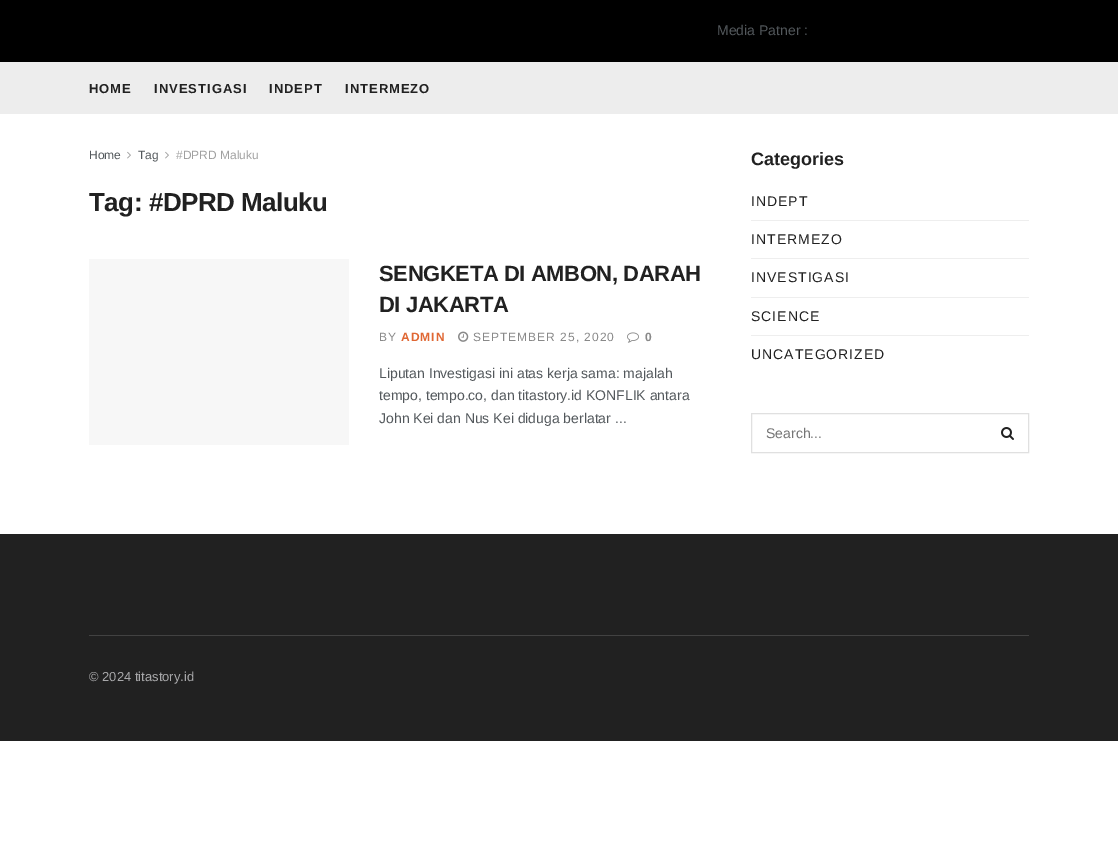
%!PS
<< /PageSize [1118 861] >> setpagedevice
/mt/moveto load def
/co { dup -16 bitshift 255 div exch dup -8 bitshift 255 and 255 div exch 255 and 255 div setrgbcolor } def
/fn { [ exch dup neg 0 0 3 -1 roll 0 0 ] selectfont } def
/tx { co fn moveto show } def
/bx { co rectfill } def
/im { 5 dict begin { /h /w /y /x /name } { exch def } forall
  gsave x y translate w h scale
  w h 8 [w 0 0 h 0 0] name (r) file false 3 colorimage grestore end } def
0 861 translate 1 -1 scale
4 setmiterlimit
0 0 1118 861 16#FFFFFF bx
0 0 1118 62 16#000000 bx
0 62 1118 52 16#EDEDED bx
(media/1.raw) 127 151 4 8 im
(media/1.raw) 165 151 4 8 im
89 259 260 186 16#F7F7F7 bx
(media/2.raw) 458 331 11 11 im
(media/3.raw) 627 332 12 11 im
751 220 278 1 16#EEEEEE bx
751 258 278 1 16#EEEEEE bx
751 297 278 1 16#EEEEEE bx
751 335 278 1 16#EEEEEE bx
16#E0E0E0 co
751.5 413.5 277 39 rectstroke
(media/4.raw) 1001 427 13 13 im
0 534 1118 207 16#212121 bx
89 635 940 1 16#424242 bx
(Media Patner :) 717 35 /LiberationSans-Regular 14 16#53585C tx
/LiberationSans-Bold 13 fn
16#212121 co
89 93 mt 1 0 (HOME) ashow
154 93 mt 1 0 (INVESTIGASI) ashow
269 93 mt 1 0 (INDEPT) ashow
345 93 mt 1 0 (INTERMEZO) ashow
(Home) 89 159 /LiberationSans-Regular 12 16#53585C tx
(Tag) 138 159 /LiberationSans-Regular 12 16#53585C tx
(#DPRD Maluku) 176 159 /LiberationSans-Regular 12 16#A0A0A0 tx
/LiberationSans-Bold 26 fn
16#212121 co
89 211 mt -.5 0 (Tag: #DPRD Maluku) ashow
/LiberationSans-Bold 22 fn
379 281 mt -.4 0 (SENGKETA DI AMBON, DARAH) ashow
379 312 mt -.4 0 (DI JAKARTA) ashow
/LiberationSans-Regular 12 fn
16#898989 co
379 341 mt 1 0 (BY) ashow
/LiberationSans-Bold 12 fn
16#E06733 co
401 341 mt 1 0 (ADMIN) ashow
/LiberationSans-Regular 12 fn
16#898989 co
473 341 mt 1 0 (SEPTEMBER 25, 2020) ashow
/LiberationSans-Bold 12 fn
645 341 mt 1 0 (0) ashow
(Liputan Investigasi ini atas kerja sama: majalah) 379 378 /LiberationSans-Regular 14 16#53585C tx
(tempo, tempo.co, dan titastory.id KONFLIK antara) 379 400 /LiberationSans-Regular 14 16#53585C tx
(John Kei dan Nus Kei diduga berlatar ...) 379 423 /LiberationSans-Regular 14 16#53585C tx
(Categories) 751 165 /LiberationSans-Bold 18 16#212121 tx
/LiberationSans-Regular 14 fn
751 206 mt 1 0 (INDEPT) ashow
751 244 mt 1 0 (INTERMEZO) ashow
751 282 mt 1 0 (INVESTIGASI) ashow
751 321 mt 1 0 (SCIENCE) ashow
751 359 mt 1 0 (UNCATEGORIZED) ashow
(Search...) 766 438 /LiberationSans-Regular 14 16#757575 tx
(© 2024 titastory.id) 89 681 /LiberationSans-Regular 13 16#A8A8AA tx
showpage
